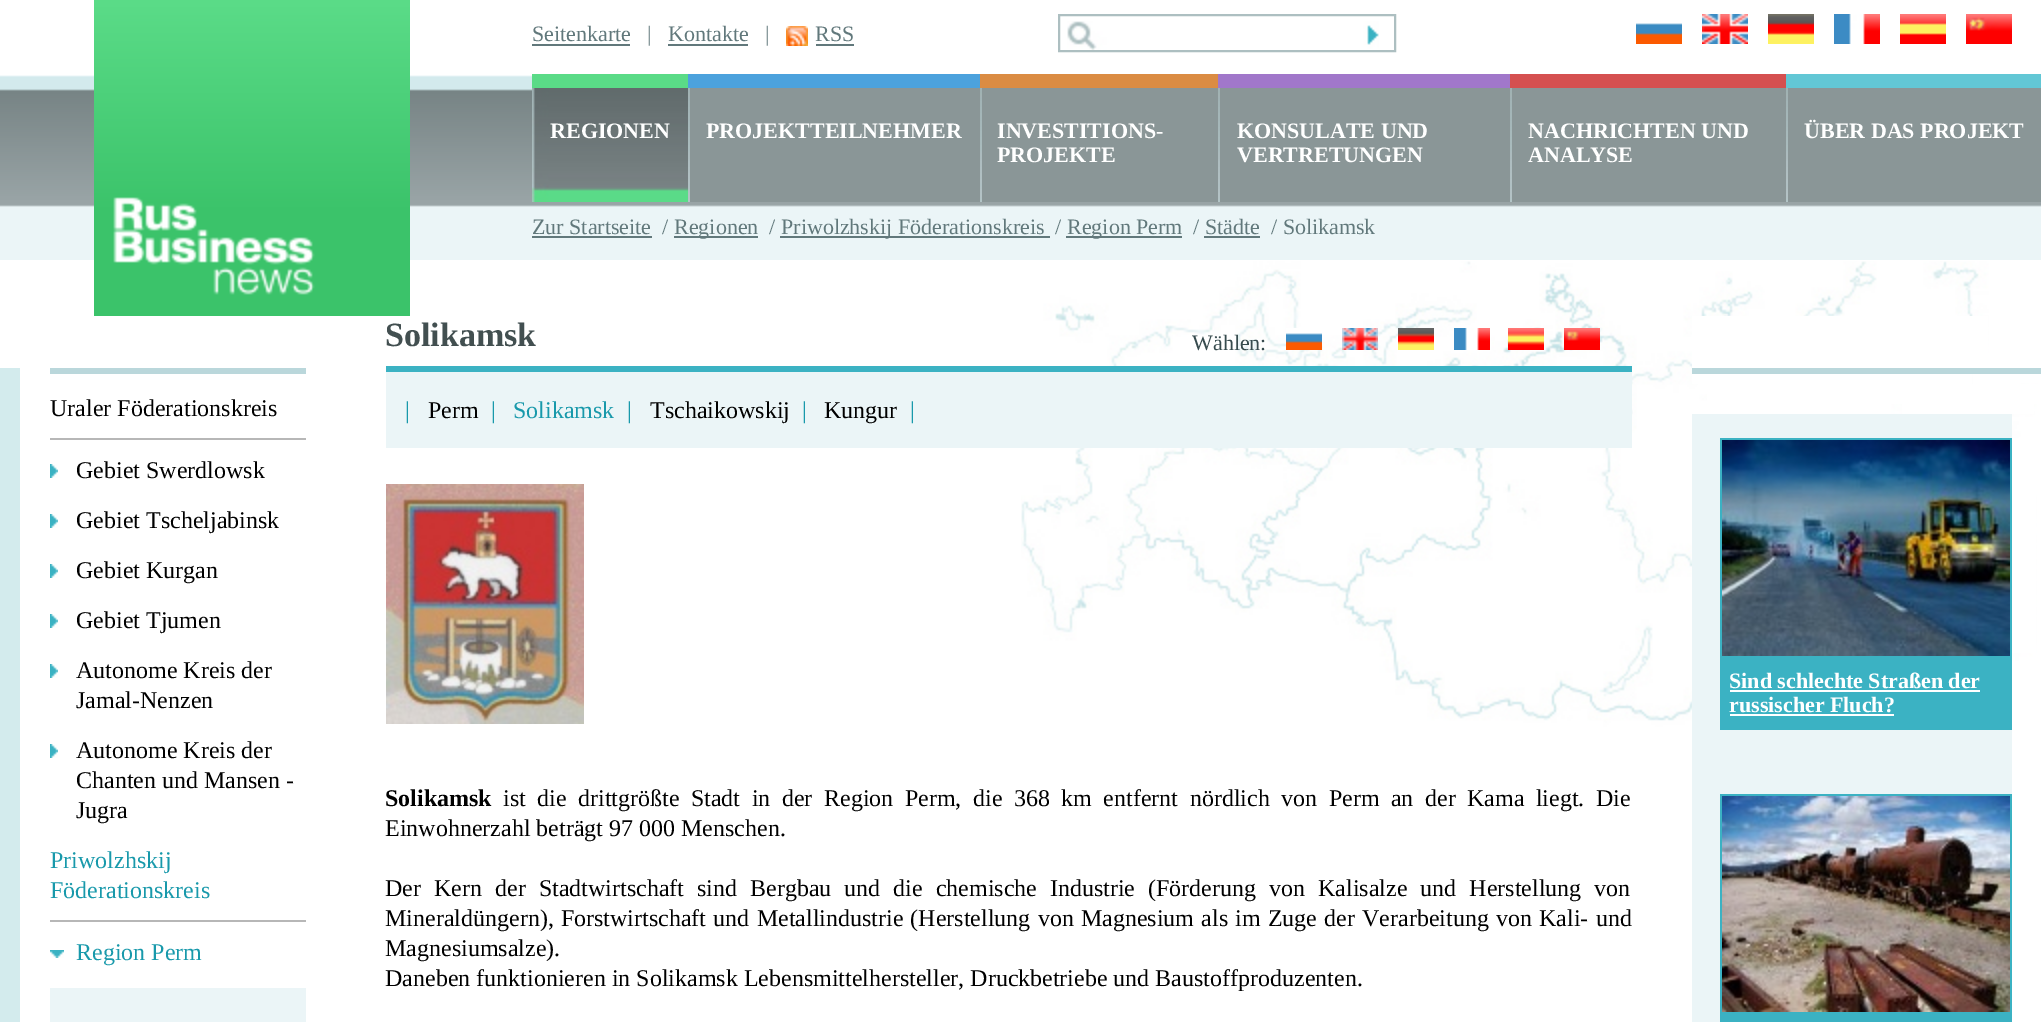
%!PS
<< /PageSize [2041 1022] >> setpagedevice
/mt/moveto load def
/lw/setlinewidth load def
/co { dup -16 bitshift 255 div exch dup -8 bitshift 255 and 255 div exch 255 and 255 div setrgbcolor } def
/fn { [ exch dup neg 0 0 3 -1 roll 0 0 ] selectfont } def
/tx { co fn moveto show } def
/bx { co rectfill } def
/im { 5 dict begin { /h /w /y /x /name } { exch def } forall
  gsave x y translate w h scale
  w h 8 [w 0 0 h 0 0] name (r) file false 3 colorimage grestore end } def
0 1022 translate 1 -1 scale
4 setmiterlimit
0 0 2041 1022 16#FFFFFF bx
(media/1.raw) 1021 261 1017 493 im
(media/2.raw) 0 75 2041 185 im
(media/3.raw) 94 0 316 316 im
532 44 98 2 16#61787B bx
668 44 80 2 16#61787B bx
(media/4.raw) 786 26 22 20 im
816 44 38 2 16#61787B bx
(media/5.raw) 1067 21 312 29 im
16#ADBFC1 co
2 lw
1059 15 336 36 rectstroke
(media/6.raw) 1636 23 46 21 im
(media/7.raw) 1702 14 46 30 im
(media/8.raw) 1768 14 46 30 im
(media/9.raw) 1834 14 46 30 im
(media/10.raw) 1900 14 46 30 im
(media/11.raw) 1966 14 46 30 im
(media/12.raw) 532 88 156 114 im
532 74 156 14 16#5ADB87 bx
690 88 290 114 16#8A9697 bx
(media/13.raw) 688 88 2 114 im
688 74 292 14 16#4CA2DD bx
982 88 236 114 16#8A9697 bx
(media/13.raw) 980 88 2 114 im
980 74 238 14 16#DB8C43 bx
1220 88 290 114 16#8A9697 bx
(media/13.raw) 1218 88 2 114 im
1218 74 292 14 16#A177CA bx
1512 88 274 114 16#8A9697 bx
(media/13.raw) 1510 88 2 114 im
1510 74 276 14 16#D55050 bx
1788 88 253 114 16#8A9697 bx
(media/13.raw) 1786 88 2 114 im
1786 74 255 14 16#62C7D5 bx
532 236 120 2 16#61787B bx
674 236 84 2 16#61787B bx
780 236 270 2 16#61787B bx
1066 236 116 2 16#61787B bx
1204 236 56 2 16#61787B bx
0 368 20 654 16#D3EBED bx
50 368 256 6 16#BAD7DB bx
50 438 256 2 16#B7B7B7 bx
(media/14.raw) 50 464 8 14 im
(media/14.raw) 50 514 8 14 im
(media/14.raw) 50 564 8 14 im
(media/14.raw) 50 614 8 14 im
(media/14.raw) 50 664 8 14 im
(media/14.raw) 50 744 8 14 im
50 920 256 2 16#B7B7B7 bx
(media/15.raw) 50 950 14 8 im
50 988 256 34 16#EBF5F7 bx
386 366 1246 6 16#3BB2C3 bx
386 372 1246 76 16#EBF5F7 bx
(media/16.raw) 386 484 198 240 im
1692 414 320 608 16#EBF5F7 bx
2012 438 24 215 16#FFFFFF bx
1692 316 296 52 16#FFFFFF bx
1692 374 280 10 16#FFFFFF bx
1692 368 349 6 16#BAD7DB bx
1698 384 340 10 16#FFFFFF bx
1707 394 331 10 16#FFFFFF bx
1902 404 132 10 16#FFFFFF bx
1720 438 292 292 16#3BB2C3 bx
(media/17.raw) 1722 440 288 216 im
1730 690 250 2 16#FFFFFF bx
1730 714 164 2 16#FFFFFF bx
1720 794 292 228 16#3BB2C3 bx
(media/18.raw) 1722 796 288 216 im
(media/19.raw) 1286 328 36 22 im
(media/20.raw) 1342 328 36 22 im
(media/21.raw) 1398 328 36 22 im
(media/22.raw) 1454 328 36 22 im
(media/23.raw) 1508 328 36 22 im
(media/24.raw) 1564 328 36 22 im
(Seitenkarte) 532 41 /LiberationSerif-Regular 22 16#61787B tx
(|) 647 41 /LiberationSerif-Regular 22 16#61787B tx
(Kontakte) 668 41 /LiberationSerif-Regular 22 16#61787B tx
(|) 765 41 /LiberationSerif-Regular 22 16#61787B tx
(RSS) 815 41 /LiberationSerif-Regular 22 16#61787B tx
(REGIONEN) 550 138 /LiberationSerif-Bold 22 16#FFFFFF tx
(PROJEKTTEILNEHMER) 706 138 /LiberationSerif-Bold 22 16#FFFFFF tx
(INVESTITIONS-) 997 138 /LiberationSerif-Bold 22 16#FFFFFF tx
(PROJEKTE) 997 162 /LiberationSerif-Bold 22 16#FFFFFF tx
(KONSULATE UND) 1237 138 /LiberationSerif-Bold 22 16#FFFFFF tx
(VERTRETUNGEN) 1237 162 /LiberationSerif-Bold 22 16#FFFFFF tx
(NACHRICHTEN UND) 1528 138 /LiberationSerif-Bold 22 16#FFFFFF tx
(ANALYSE) 1528 162 /LiberationSerif-Bold 22 16#FFFFFF tx
(ÜBER DAS PROJEKT) 1804 138 /LiberationSerif-Bold 22 16#FFFFFF tx
(Zur Startseite) 532 234 /LiberationSerif-Regular 22 16#61787B tx
(/) 662 234 /LiberationSerif-Regular 22 16#61787B tx
(Regionen) 674 234 /LiberationSerif-Regular 22 16#61787B tx
(/) 769 234 /LiberationSerif-Regular 22 16#61787B tx
(Priwolzhskij Föderationskreis) 781 234 /LiberationSerif-Regular 22 16#61787B tx
(/) 1055 234 /LiberationSerif-Regular 22 16#61787B tx
(Region Perm) 1067 234 /LiberationSerif-Regular 22 16#61787B tx
(/ Städte) 1193 234 /LiberationSerif-Regular 22 16#61787B tx
(/ Solikamsk) 1271 234 /LiberationSerif-Regular 22 16#61787B tx
(Uraler Föderationskreis) 50 416 /LiberationSerif-Regular 24 16#000000 tx
(Gebiet Swerdlowsk) 76 478 /LiberationSerif-Regular 24 16#000000 tx
(Gebiet Tscheljabinsk) 76 528 /LiberationSerif-Regular 24 16#000000 tx
(Gebiet Kurgan) 76 578 /LiberationSerif-Regular 24 16#000000 tx
(Gebiet Tjumen) 76 628 /LiberationSerif-Regular 24 16#000000 tx
(Autonome Kreis der) 76 678 /LiberationSerif-Regular 24 16#000000 tx
(Jamal-Nenzen) 76 708 /LiberationSerif-Regular 24 16#000000 tx
(Autonome Kreis der) 76 758 /LiberationSerif-Regular 24 16#000000 tx
(Chanten und Mansen -) 76 788 /LiberationSerif-Regular 24 16#000000 tx
(Jugra) 76 818 /LiberationSerif-Regular 24 16#000000 tx
(Priwolzhskij) 50 868 /LiberationSerif-Regular 24 16#1899AB tx
(Föderationskreis) 50 898 /LiberationSerif-Regular 24 16#1899AB tx
(Region Perm) 76 960 /LiberationSerif-Regular 24 16#1899AB tx
(Solikamsk) 385 346 /LiberationSerif-Bold 34 16#424F50 tx
(|) 405 418 /LiberationSerif-Regular 24 16#1899AB tx
(Perm) 428 418 /LiberationSerif-Regular 24 16#000000 tx
(|) 491 418 /LiberationSerif-Regular 24 16#1899AB tx
(Solikamsk) 513 418 /LiberationSerif-Regular 24 16#1899AB tx
(|) 627 418 /LiberationSerif-Regular 24 16#1899AB tx
(Tschaikowskij) 650 418 /LiberationSerif-Regular 24 16#000000 tx
(|) 802 418 /LiberationSerif-Regular 24 16#1899AB tx
(Kungur) 824 418 /LiberationSerif-Regular 24 16#000000 tx
(|) 910 418 /LiberationSerif-Regular 24 16#1899AB tx
(Solikamsk) 385 806 /LiberationSerif-Bold 24 16#000000 tx
/LiberationSerif-Regular 24 fn
503 806 mt 5.5 0 32 (ist die drittgrößte Stadt in der Region Perm, die 368 km entfernt nördlich von Perm an der Kama liegt. Die) widthshow
(Einwohnerzahl beträgt 97 000 Menschen.) 385 836 /LiberationSerif-Regular 24 16#000000 tx
385 896 mt 7 0 32 (Der Kern der Stadtwirtschaft sind Bergbau und die chemische Industrie \(Förderung von Kalisalze und Herstellung von) widthshow
385 926 mt 1.2 0 32 (Mineraldüngern\), Forstwirtschaft und Metallindustrie \(Herstellung von Magnesium als im Zuge der Verarbeitung von Kali- und) widthshow
(Magnesiumsalze\).) 385 956 /LiberationSerif-Regular 24 16#000000 tx
(Daneben funktionieren in Solikamsk Lebensmittelhersteller, Druckbetriebe und Baustoffproduzenten.) 385 986 /LiberationSerif-Regular 24 16#000000 tx
(Sind schlechte Straßen der) 1729 688 /LiberationSerif-Bold 22 16#FFFFFF tx
(russischer Fluch?) 1729 712 /LiberationSerif-Bold 22 16#FFFFFF tx
(Wählen:) 1192 350 /LiberationSerif-Regular 22 16#374B4E tx
showpage
